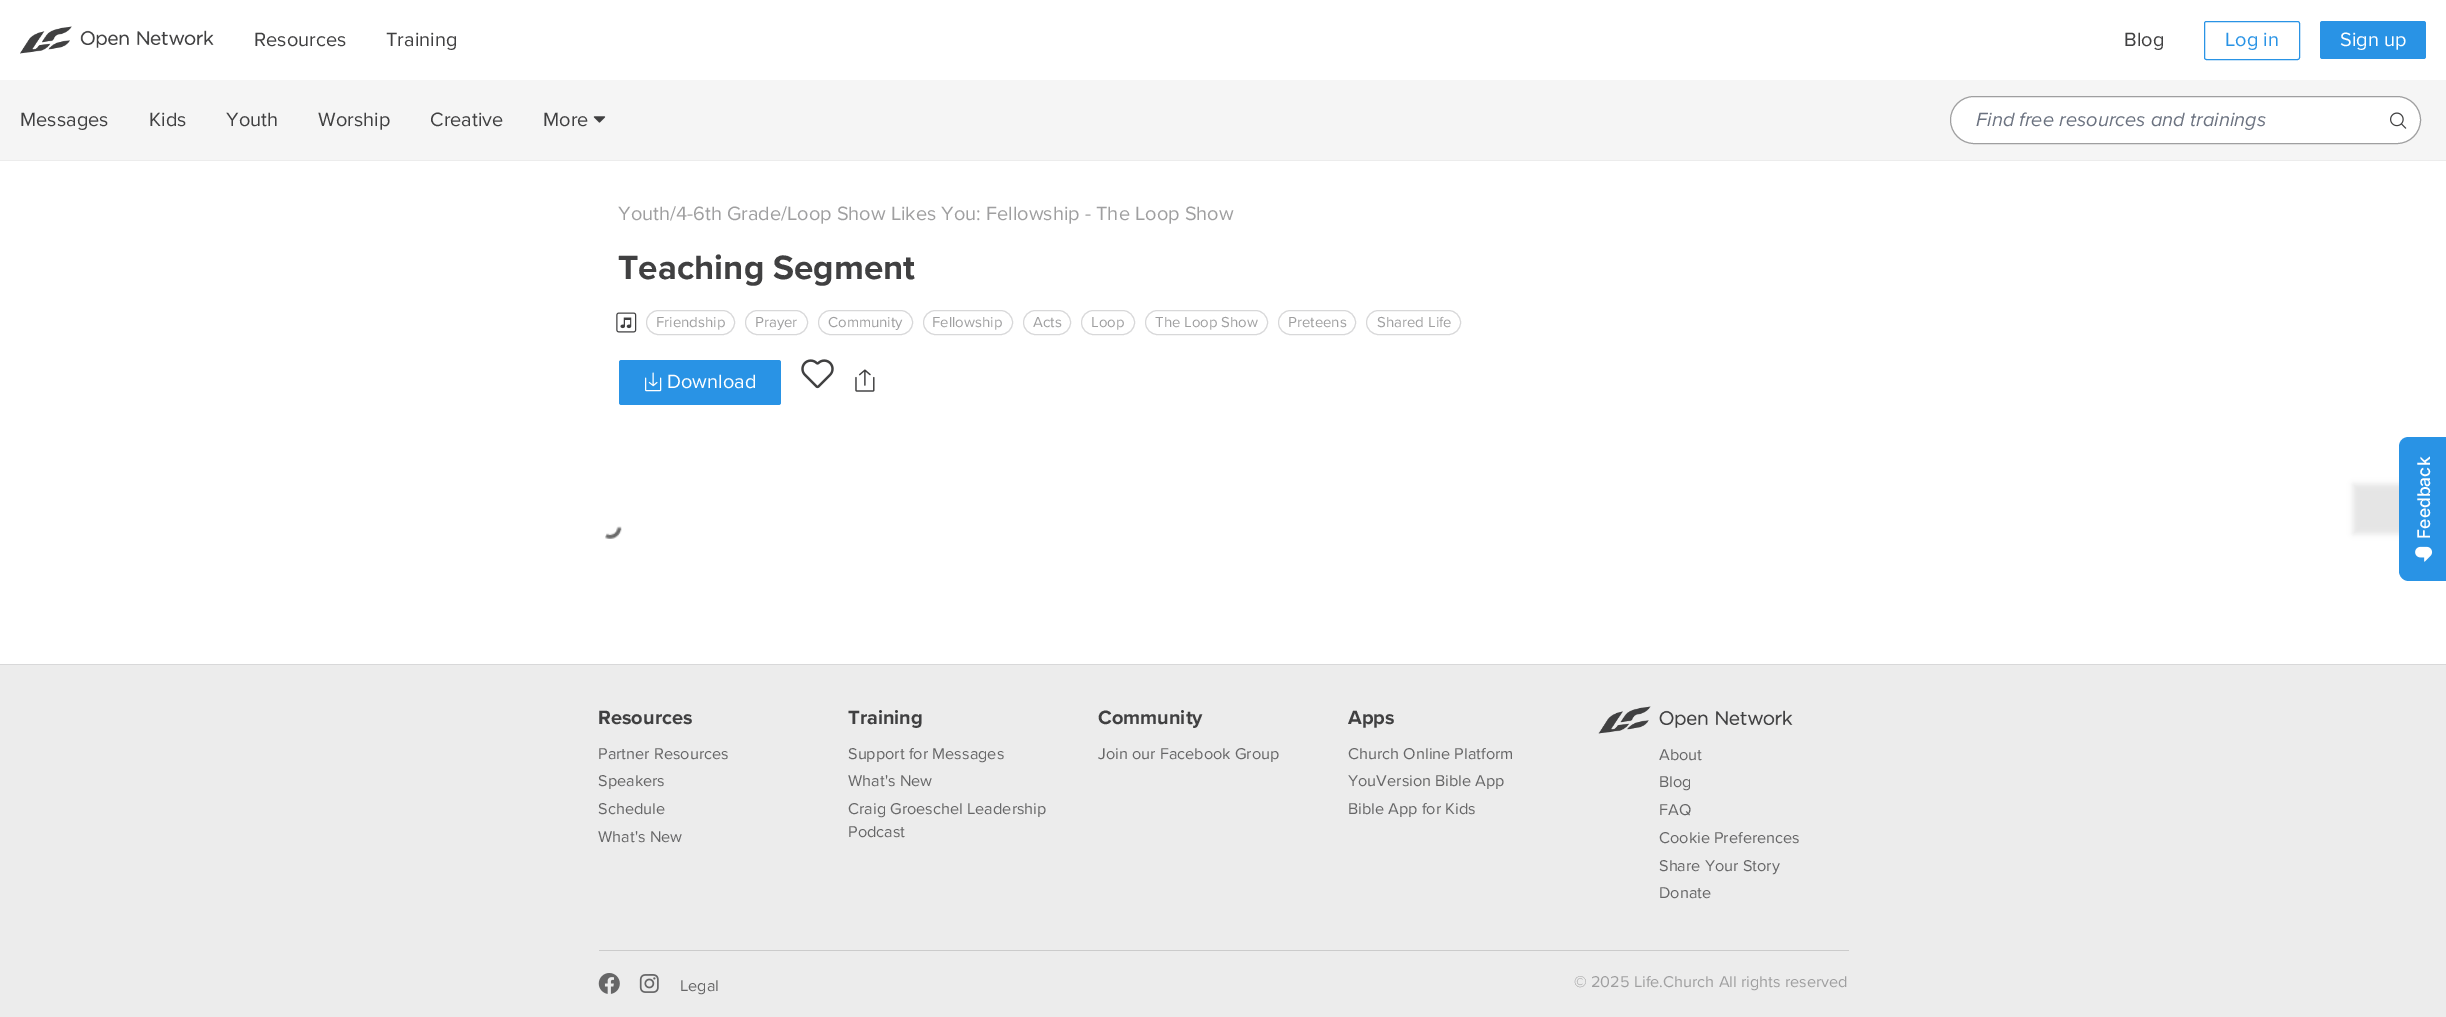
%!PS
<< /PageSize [2446 1017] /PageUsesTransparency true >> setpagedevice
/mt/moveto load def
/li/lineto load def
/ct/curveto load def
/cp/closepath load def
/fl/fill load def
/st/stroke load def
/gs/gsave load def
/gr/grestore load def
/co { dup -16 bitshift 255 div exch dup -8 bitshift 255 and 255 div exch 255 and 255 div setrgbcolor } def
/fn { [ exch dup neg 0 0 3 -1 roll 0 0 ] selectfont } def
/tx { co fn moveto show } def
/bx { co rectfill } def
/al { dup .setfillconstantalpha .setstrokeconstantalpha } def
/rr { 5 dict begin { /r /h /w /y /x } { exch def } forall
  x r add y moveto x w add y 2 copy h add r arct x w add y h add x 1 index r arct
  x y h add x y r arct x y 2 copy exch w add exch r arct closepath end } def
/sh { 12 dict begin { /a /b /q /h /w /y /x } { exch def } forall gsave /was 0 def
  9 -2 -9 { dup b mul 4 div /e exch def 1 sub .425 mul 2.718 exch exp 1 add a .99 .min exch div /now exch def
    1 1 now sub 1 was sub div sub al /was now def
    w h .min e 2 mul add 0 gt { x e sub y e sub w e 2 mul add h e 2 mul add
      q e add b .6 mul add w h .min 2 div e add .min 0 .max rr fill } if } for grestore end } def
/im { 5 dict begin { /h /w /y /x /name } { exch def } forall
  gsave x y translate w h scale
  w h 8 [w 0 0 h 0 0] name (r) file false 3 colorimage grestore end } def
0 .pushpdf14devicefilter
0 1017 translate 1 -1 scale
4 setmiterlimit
0 0 2446 1017 16#FFFFFF bx
(media/1.raw) 20 26 194 28 im
16#2993E5 co
2204.5 21.5 95 38 2 rr st
2320 21 106 38 2.5 rr fl
0 160 2446 1 16#ECECEC bx
0 80 2446 80 16#F5F5F5 bx
(media/2.raw) 593 116 13 7 im
16#FFFFFF co
1950.5 96.5 470 47 23.5 rr gs fl gr
16#9F9FA0 co
st
(media/3.raw) 2390 112 17 17 im
(media/4.raw) 616 312 21 21 im
16#D8D8D9 co
646.5 310.5 88 24 12 rr st
745.5 310.5 62 24 12 rr st
818.5 310.5 94 24 12 rr st
923.5 310.5 89 24 12 rr st
1023.5 310.5 47 24 12 rr st
1081.5 310.5 53 24 12 rr st
1145.5 310.5 122 24 12 rr st
1278.5 310.5 77 24 12 rr st
1366.5 310.5 94 24 12 rr st
16#2993E5 co
619 360 162 45 2.5 rr fl
(media/5.raw) 645 372 17 20 im
(media/6.raw) 801 359 33 30 im
(media/7.raw) 855 369 20 23 im
(media/8.raw) 605 526 17 13 im
16#000000 co
2353 484 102 50 0 3 .1 sh
16#2993E5 co
2399 571 mt 2399 447 li 2399 441 2403 437 2409 437 ct 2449 437 li 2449 581 li 2409 581 li 2403 581 2399 576 2399 571 ct cp fl
(media/9.raw) 2415 546 18 16 im
0 665 2446 352 16#ECECEC bx
0 664 2446 1 16#D8D8D9 bx
(media/10.raw) 1598 706 195 28 im
599 950 1250 1 16#CBCBCB bx
(media/11.raw) 598 973 22 21 im
(media/12.raw) 639 974 20 19 im
(Resources) 254 46 /ProximaNova-Regular 20 16#404041 tx
(Training) 386 46 /ProximaNova-Regular 20 16#404041 tx
(Blog) 2124 46 /ProximaNova-Regular 20 16#404041 tx
(Log in) 2225 46 /ProximaNova-Regular 20 16#2993E5 tx
(Sign up) 2340 46 /ProximaNova-Regular 20 16#FFFFFF tx
(Messages) 20 126 /ProximaNova-Regular 20 16#404041 tx
(Kids) 149 126 /ProximaNova-Regular 20 16#404041 tx
(Youth) 226 126 /ProximaNova-Regular 20 16#404041 tx
(Worship) 318 126 /ProximaNova-Regular 20 16#404041 tx
(Creative) 430 126 /ProximaNova-Regular 20 16#404041 tx
(More) 543 126 /ProximaNova-Regular 20 16#404041 tx
(Find free resources and trainings) 1976 126 /ProximaNova-Italic 20 16#6B7280 tx
(Youth/4-6th Grade/Loop Show Likes You: Fellowship - The Loop Show) 618 220 /ProximaNova-Regular 20 16#9F9FA0 tx
(Teaching Segment) 618 279 /ProximaNova-Bold 35 16#404041 tx
(Friendship) 656 327 /ProximaNova-Regular 15 16#9F9FA0 tx
(Prayer) 755 327 /ProximaNova-Regular 15 16#9F9FA0 tx
(Community) 828 327 /ProximaNova-Regular 15 16#9F9FA0 tx
(Fellowship) 932 327 /ProximaNova-Regular 15 16#9F9FA0 tx
(Acts) 1033 327 /ProximaNova-Regular 15 16#9F9FA0 tx
(Loop) 1091 327 /ProximaNova-Regular 15 16#9F9FA0 tx
(The Loop Show) 1155 327 /ProximaNova-Regular 15 16#9F9FA0 tx
(Preteens) 1288 327 /ProximaNova-Regular 15 16#9F9FA0 tx
(Shared Life) 1377 327 /ProximaNova-Regular 15 16#9F9FA0 tx
(Download) 667 388 /ProximaNova-Regular 20 16#FFFFFF tx
/Inter-Medium 17.5 fn
gs 2430 539 translate -90 rotate 0 0 mt (Feedback) show gr
(Resources) 598 724 /ProximaNova-Bold 20 16#404041 tx
(Partner Resources) 598 759 /ProximaNova-Regular 16.25 16#666667 tx
(Speakers) 598 786 /ProximaNova-Regular 16.25 16#666667 tx
(Schedule) 598 814 /ProximaNova-Regular 16.25 16#666667 tx
(What's New) 598 842 /ProximaNova-Regular 16.25 16#666667 tx
(Training) 848 724 /ProximaNova-Bold 20 16#404041 tx
(Support for Messages) 848 759 /ProximaNova-Regular 16.25 16#666667 tx
(What's New) 848 786 /ProximaNova-Regular 16.25 16#666667 tx
(Craig Groeschel Leadership) 848 814 /ProximaNova-Regular 16.25 16#666667 tx
(Podcast) 848 837 /ProximaNova-Regular 16.25 16#666667 tx
(Community) 1098 724 /ProximaNova-Bold 20 16#404041 tx
(Join our Facebook Group) 1098 759 /ProximaNova-Regular 16.25 16#666667 tx
(Apps) 1348 724 /ProximaNova-Bold 20 16#404041 tx
(Church Online Platform) 1348 759 /ProximaNova-Regular 16.25 16#666667 tx
(YouVersion Bible App) 1348 786 /ProximaNova-Regular 16.25 16#666667 tx
(Bible App for Kids) 1348 814 /ProximaNova-Regular 16.25 16#666667 tx
(About) 1659 760 /ProximaNova-Regular 16.25 16#666667 tx
(Blog) 1659 787 /ProximaNova-Regular 16.25 16#666667 tx
(FAQ) 1659 815 /ProximaNova-Regular 16.25 16#666667 tx
(Cookie Preferences) 1659 843 /ProximaNova-Regular 16.25 16#666667 tx
(Share Your Story) 1659 871 /ProximaNova-Regular 16.25 16#666667 tx
(Donate) 1659 898 /ProximaNova-Regular 16.25 16#666667 tx
(Legal) 680 991 /ProximaNova-Regular 16.25 16#666667 tx
(© 2025 Life.Church All rights reserved) 1574 987 /ProximaNova-Regular 16.25 16#9F9FA0 tx
.poppdf14devicefilter showpage
